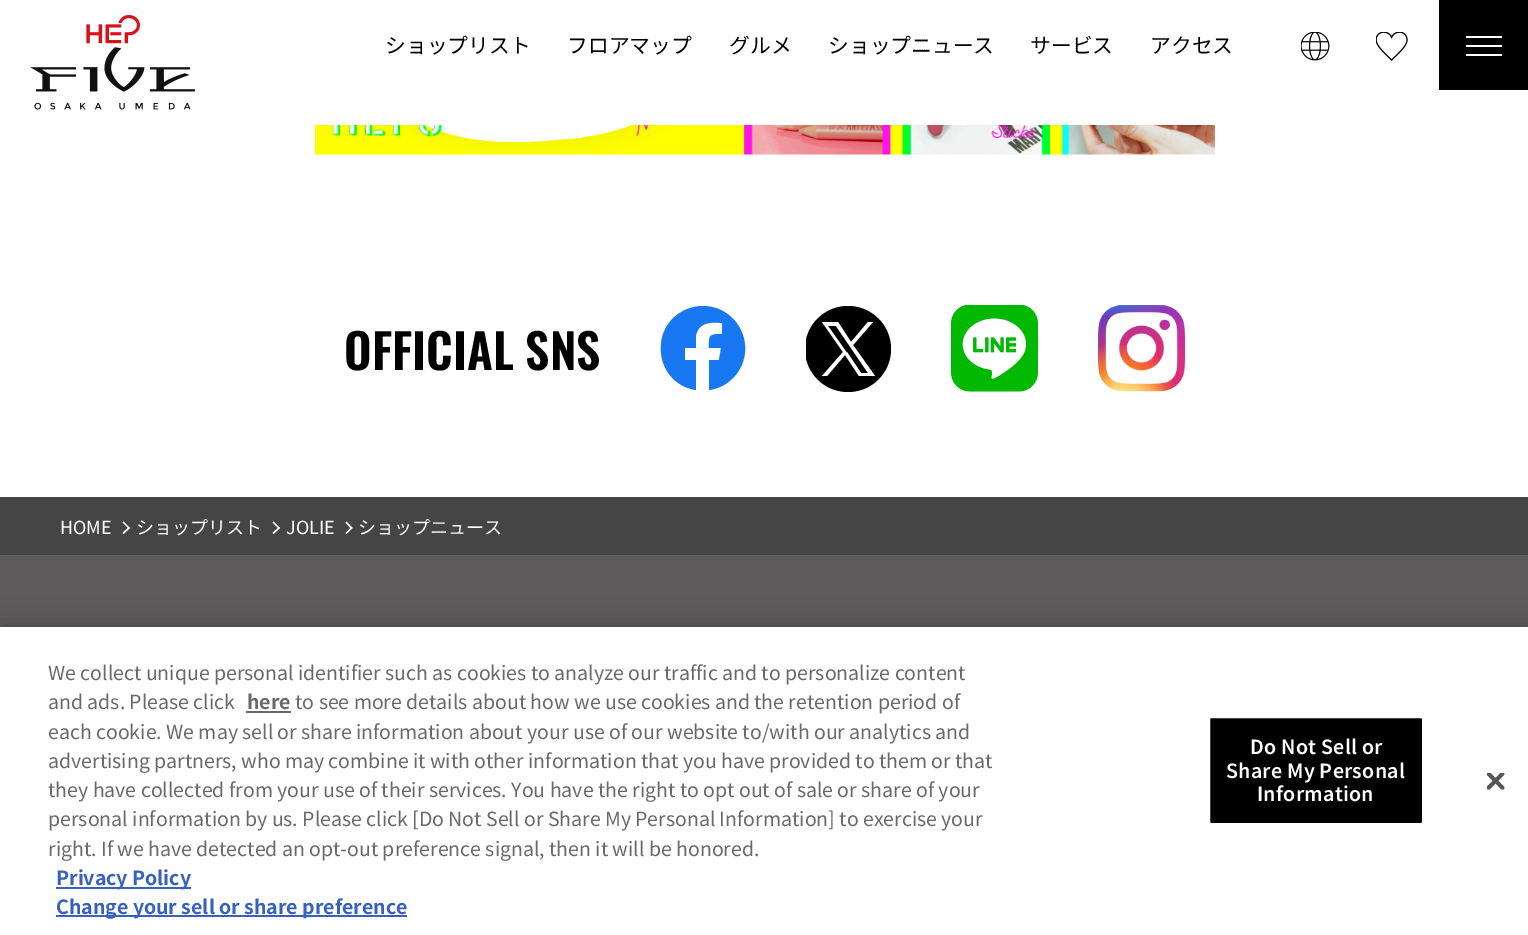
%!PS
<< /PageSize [1528 935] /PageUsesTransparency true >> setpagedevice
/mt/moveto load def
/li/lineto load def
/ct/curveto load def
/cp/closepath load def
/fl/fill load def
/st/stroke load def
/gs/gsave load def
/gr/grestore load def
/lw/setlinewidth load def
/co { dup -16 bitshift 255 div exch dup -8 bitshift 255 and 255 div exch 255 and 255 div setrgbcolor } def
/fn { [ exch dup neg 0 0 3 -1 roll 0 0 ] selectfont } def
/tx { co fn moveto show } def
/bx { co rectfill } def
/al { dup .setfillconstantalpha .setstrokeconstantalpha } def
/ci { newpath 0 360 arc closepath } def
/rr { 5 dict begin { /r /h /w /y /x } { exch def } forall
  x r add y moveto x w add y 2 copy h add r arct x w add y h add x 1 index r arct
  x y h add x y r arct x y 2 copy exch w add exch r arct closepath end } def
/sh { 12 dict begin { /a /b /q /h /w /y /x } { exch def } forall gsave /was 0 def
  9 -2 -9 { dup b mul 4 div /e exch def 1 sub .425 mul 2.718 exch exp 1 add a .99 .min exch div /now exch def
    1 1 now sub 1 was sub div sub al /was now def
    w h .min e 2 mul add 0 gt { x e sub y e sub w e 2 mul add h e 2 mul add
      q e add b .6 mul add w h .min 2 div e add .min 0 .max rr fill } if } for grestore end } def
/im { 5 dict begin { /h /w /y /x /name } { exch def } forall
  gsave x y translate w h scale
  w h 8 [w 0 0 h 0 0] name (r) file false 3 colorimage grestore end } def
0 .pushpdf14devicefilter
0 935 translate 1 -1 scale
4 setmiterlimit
0 0 1528 935 16#FFFFFF bx
(media/1.raw) 30 15 165 95 im
(media/2.raw) 1301 32 29 29 im
(media/3.raw) 1376 32 32 29 im
1439 0 89 90 16#000000 bx
1466 45 36 2 16#FFFFFF bx
1466 36 36 2 16#FFFFFF bx
1466 54 36 2 16#FFFFFF bx
(media/4.raw) 315 125 900 30 im
16#1877F2 co
703 306 mt 681 306 662 323 661 345 ct 659 367 674 387 696 390 ct 696 360 li 685 360 li 685 348 li 696 348 li 696 335 li 699 322 711 322 722 323 ct 722 334 li 708 334 709 336 709 348 ct 721 348 li 719 360 li 709 360 li 709 390 li 731 387 747 367 745 345 ct 743 323 725 306 703 306 ct cp fl
gs
806 306 85 86 rectclip
16#000000 co
848 349 43 ci fl
gr
16#FFFFFF co
853 345 mt 873 322 li 868 322 li 851 342 li 838 322 li 822 322 li 843 352 li 822 376 li 827 376 li 845 355 li 859 376 li 875 376 li cp 847 353 mt 828 326 li 836 326 li 868 373 li 861 373 li 847 352 li cp fl
(media/5.raw) 951 305 87 87 im
(media/6.raw) 1098 305 87 87 im
0 497 1528 58 16#464545 bx
16#FFFFFF co
122.5 522.5 mt 123.5 521.5 li 130 528 li 129 529 li cp fl
122.5 533 mt 129 527 li 130 528 li 123.5 534 li cp fl
272.5 522.5 mt 273.5 521.5 li 280 528 li 279 529 li cp fl
272.5 533 mt 279 527 li 280 528 li 273.5 534 li cp fl
345.5 522.5 mt 346.5 521.5 li 352.5 528 li 351.5 529 li cp fl
345.5 533 mt 351.5 527 li 352.5 528 li 346.5 534 li cp fl
0 555 1528 72 16#5D5B5B bx
16#000000 co
0 627 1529 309 0 13.5 .2 sh
0 627 1528 308 16#FFFFFF bx
246 711 45 2 16#696969 bx
56 887 135 2 16#3860BE bx
56 915 351 2 16#3860BE bx
16#000000 co
1209 717 214 107 2 rr gs fl gr
16#FFFFFF co
2 lw
st
(media/7.raw) 1487 773 18 17 im
(ショップリスト) 385 53 /NotoSansJP-Regular 20.75 16#000000 tx
(フロアマップ) 567 53 /NotoSansJP-Regular 20.75 16#000000 tx
(グルメ) 729 53 /NotoSansJP-Regular 20.75 16#000000 tx
(ショップニュース) 828 53 /NotoSansJP-Regular 20.75 16#000000 tx
(サービス) 1030 53 /NotoSansJP-Regular 20.75 16#000000 tx
(アクセス) 1150 53 /NotoSansJP-Regular 20.75 16#000000 tx
(OFFICIAL SNS) 344 370 /Oswald-SemiBold 48 16#000000 tx
(HOME) 60 534 /NotoSansJP-Regular 18 16#FFFFFF tx
(ショップリスト) 136 534 /NotoSansJP-Regular 18 16#FFFFFF tx
(JOLIE) 286 534 /NotoSansJP-Regular 18 16#FFFFFF tx
(ショップニュース) 358 534 /NotoSansJP-Regular 18 16#FFFFFF tx
(We collect unique personal identifier such as cookies to analyze our traffic and to personalize content) 48 680 /NotoSansJP-Regular 19.5 16#696969 tx
(and ads. Please click) 48 709 /NotoSansJP-Regular 19.5 16#696969 tx
(here) 247 709 /NotoSansJP-Bold 19.5 16#696969 tx
(to see more details about how we use cookies and the retention period of) 295 709 /NotoSansJP-Regular 19.5 16#696969 tx
(each cookie. We may sell or share information about your use of our website to/with our analytics and) 48 739 /NotoSansJP-Regular 19.5 16#696969 tx
(advertising partners, who may combine it with other information that you have provided to them or that) 48 768 /NotoSansJP-Regular 19.5 16#696969 tx
(they have collected from your use of their services. You have the right to opt out of sale or share of your) 48 797 /NotoSansJP-Regular 19.5 16#696969 tx
(personal information by us. Please click [Do Not Sell or Share My Personal Information] to exercise your) 48 826 /NotoSansJP-Regular 19.5 16#696969 tx
(right. If we have detected an opt-out preference signal, then it will be honored.) 48 856 /NotoSansJP-Regular 19.5 16#696969 tx
(Privacy Policy) 56 885 /NotoSansJP-Bold 19.5 16#3860BE tx
(Change your sell or share preference) 56 914 /NotoSansJP-Bold 19.5 16#3860BE tx
/NotoSansJP-SemiBold 19.5 fn
16#FFFFFF co
1250 754 mt .25 0 (Do Not Sell or) ashow
1226 778 mt .25 0 (Share My Personal) ashow
1257 801 mt .25 0 (Information) ashow
.poppdf14devicefilter showpage
